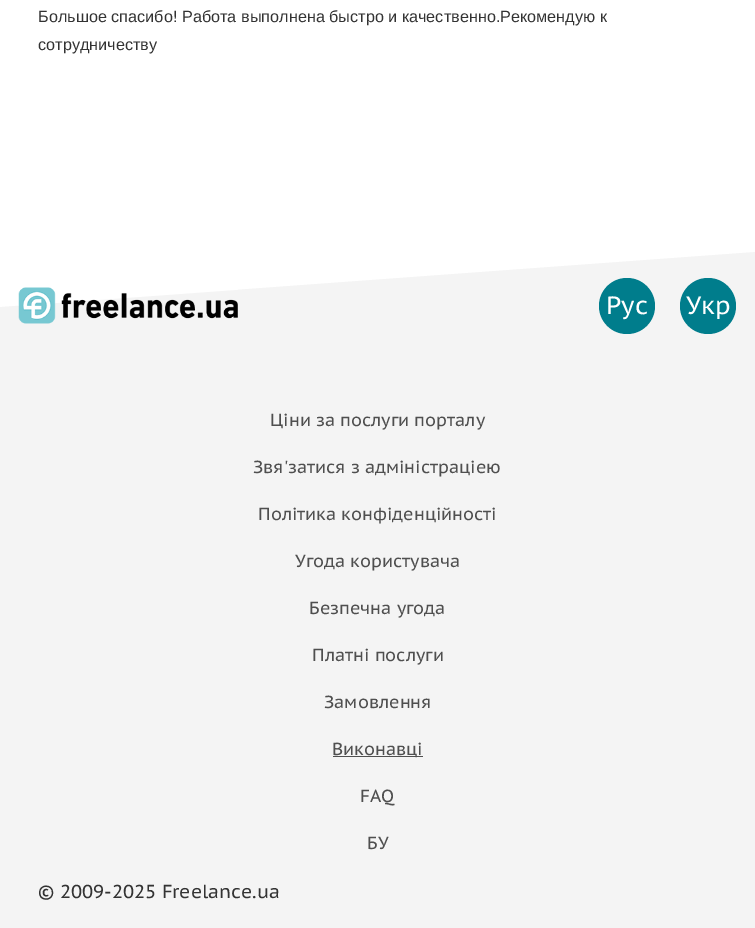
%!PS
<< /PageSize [755 928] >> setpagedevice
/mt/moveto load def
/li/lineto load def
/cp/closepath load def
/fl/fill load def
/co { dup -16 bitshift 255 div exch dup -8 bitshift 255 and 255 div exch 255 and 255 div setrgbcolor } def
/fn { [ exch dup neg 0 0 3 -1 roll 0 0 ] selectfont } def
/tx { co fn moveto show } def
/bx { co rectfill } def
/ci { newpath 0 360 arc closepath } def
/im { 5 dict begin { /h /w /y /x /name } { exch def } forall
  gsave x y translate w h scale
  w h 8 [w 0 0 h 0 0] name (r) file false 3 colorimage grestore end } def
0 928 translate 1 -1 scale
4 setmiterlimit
0 0 755 928 16#FFFFFF bx
16#F4F4F4 co
-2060 102 mt -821 367 li 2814 102 li 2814 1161 li -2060 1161 li cp fl
(media/1.raw) 18 287 220 37 im
16#007D8C co
627 306 28 ci fl
708 306 28 ci fl
333 756 90 1 16#4F4F4F bx
(Большое спасибо! Работа выполнена быстро и качественно.Рекомендую к) 38 22 /LiberationSans-Regular 16.25 16#333333 tx
(сотрудничеству) 38 50 /LiberationSans-Regular 16.25 16#333333 tx
(Рус) 606 314 /PTSansCaption-Regular 25 16#FFFFFF tx
(Укр) 686 314 /PTSansCaption-Regular 25 16#FFFFFF tx
(Ціни за послуги порталу) 270 426 /PTSansCaption-Regular 17.5 16#4F4F4F tx
(Звя'затися з адміністраціею) 253 473 /PTSansCaption-Regular 17.5 16#4F4F4F tx
(Політика конфіденційності) 258 520 /PTSansCaption-Regular 17.5 16#4F4F4F tx
(Угода користувача) 295 567 /PTSansCaption-Regular 17.5 16#4F4F4F tx
(Безпечна угода) 309 614 /PTSansCaption-Regular 17.5 16#4F4F4F tx
(Платнi послуги) 312 661 /PTSansCaption-Regular 17.5 16#4F4F4F tx
(Замовлення) 324 708 /PTSansCaption-Regular 17.5 16#4F4F4F tx
(Виконавці) 332 755 /PTSansCaption-Regular 17.5 16#4F4F4F tx
(FAQ) 360 802 /PTSansCaption-Regular 17.5 16#4F4F4F tx
(БУ) 367 849 /PTSansCaption-Regular 17.5 16#4F4F4F tx
(© 2009-2025 Freelance.ua) 38 898 /PTSansCaption-Regular 18.75 16#333333 tx
showpage
